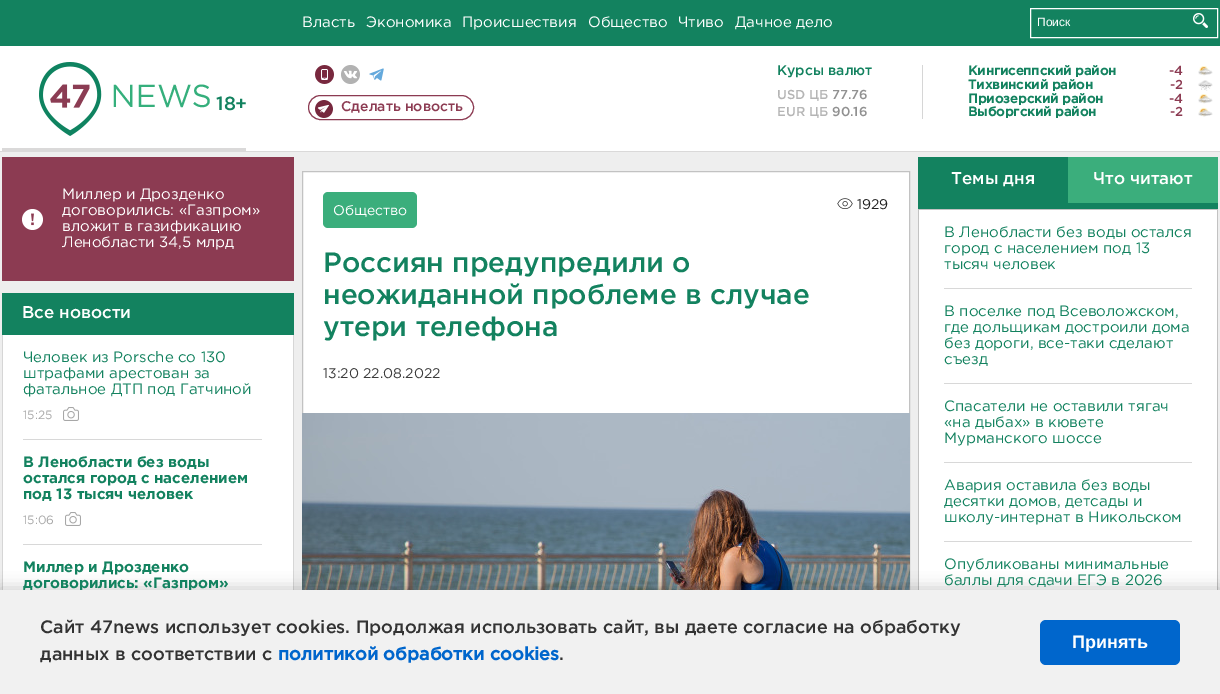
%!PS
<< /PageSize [1220 694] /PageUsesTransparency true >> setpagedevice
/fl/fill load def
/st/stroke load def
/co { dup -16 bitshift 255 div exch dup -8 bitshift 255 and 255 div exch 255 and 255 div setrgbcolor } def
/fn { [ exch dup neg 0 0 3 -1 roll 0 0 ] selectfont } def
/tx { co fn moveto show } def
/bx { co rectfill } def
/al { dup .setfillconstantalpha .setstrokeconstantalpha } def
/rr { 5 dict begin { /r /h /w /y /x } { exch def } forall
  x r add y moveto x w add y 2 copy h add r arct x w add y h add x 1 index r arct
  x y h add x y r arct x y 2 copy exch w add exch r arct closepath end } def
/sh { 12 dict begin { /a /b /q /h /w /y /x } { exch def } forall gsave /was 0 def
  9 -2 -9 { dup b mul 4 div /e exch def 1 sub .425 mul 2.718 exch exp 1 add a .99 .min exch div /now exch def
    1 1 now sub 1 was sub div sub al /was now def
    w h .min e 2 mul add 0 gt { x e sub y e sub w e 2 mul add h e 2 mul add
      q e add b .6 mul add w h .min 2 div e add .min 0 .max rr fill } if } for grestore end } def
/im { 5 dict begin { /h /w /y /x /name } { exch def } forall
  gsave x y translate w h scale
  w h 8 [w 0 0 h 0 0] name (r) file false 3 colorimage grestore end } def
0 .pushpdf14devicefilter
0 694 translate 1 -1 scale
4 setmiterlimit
0 0 1220 694 16#EEEEEE bx
0 0 1220 46 16#13825F bx
16#FFFFFF co
1030.5 8.5 187 29 rectstroke
(media/1.raw) 1193 13 15 15 im
0 46 1220 105 16#FFFFFF bx
0 151 1220 1 16#DAD9D9 bx
2 148 244 3 16#DAD9D9 bx
(media/2.raw) 39 62 171 74 im
922 65 1 54 16#D6D6D6 bx
(media/3.raw) 1198 66 15 10 im
(media/4.raw) 1198 80 15 11 im
(media/3.raw) 1198 94 15 10 im
(media/5.raw) 1198 107 15 10 im
(media/6.raw) 315 65 19 19 im
(media/7.raw) 341 65 19 19 im
(media/8.raw) 369 68 15 13 im
(media/9.raw) 315 100 18 18 im
16#8C3B52 co
308.5 95.5 165 24 12 rr st
2 157 292 124 16#8C3B52 bx
(media/10.raw) 22 209 21 21 im
2 293 292 42 16#13825F bx
3 335 290 255 16#FFFFFF bx
293 335 1 255 16#D6D6D6 bx
2 335 1 255 16#D6D6D6 bx
23 439 239 1 16#D8D8D8 bx
(media/11.raw) 63 407 16 14 im
23 544 239 1 16#D8D8D8 bx
(media/11.raw) 65 512 16 14 im
303 172 606 241 16#FFFFFF bx
16#C2C2C2 co
302.5 171.5 607 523 rectstroke
16#3BAE7C co
323 192 94 36 5 rr fl
(media/12.raw) 837 198 16 11 im
(media/13.raw) 302 413 608 177 im
918 157 300 52 16#13825F bx
1068 157 150 46 16#3BAE7C bx
919 210 298 380 16#FFFFFF bx
918 209 300 1 16#C2C2C2 bx
1217 209 1 381 16#C2C2C2 bx
918 209 1 381 16#C2C2C2 bx
944 288 248 1 16#D8D8D8 bx
944 383 248 1 16#D8D8D8 bx
944 462 248 1 16#D8D8D8 bx
944 541 248 1 16#D8D8D8 bx
16#000000 co
0 588 1220 104 0 7.5 .2 sh
(Власть) 302 27 /Gotham-Regular 15 16#FFFFFF tx
(Экономика) 366 27 /Gotham-Regular 15 16#FFFFFF tx
(Происшествия) 462 27 /Gotham-Regular 15 16#FFFFFF tx
(Общество) 588 27 /Gotham-Regular 15 16#FFFFFF tx
(Чтиво) 678 27 /Gotham-Regular 15 16#FFFFFF tx
(Дачное дело) 735 27 /Gotham-Regular 15 16#FFFFFF tx
(Поиск) 1037 26 /LiberationSans-Regular 12 16#FFFFFF tx
(Курсы валют) 777 75 /Gotham-Medium 14 16#13825F tx
(USD ЦБ) 777 99 /Gotham-Medium 13 16#B5B5B5 tx
(77.76) 832 99 /Gotham-Medium 13 16#919191 tx
(EUR ЦБ) 777 116 /Gotham-Medium 13 16#B5B5B5 tx
(90.16) 832 116 /Gotham-Medium 13 16#919191 tx
(Кингисеппский район) 968 75 /Gotham-Bold 13 16#13825F tx
(-4) 1169 75 /Gotham-Medium 13 16#8C3B52 tx
(Тихвинский район) 968 89 /Gotham-Bold 13 16#13825F tx
(-2) 1170 89 /Gotham-Medium 13 16#8C3B52 tx
(Приозерский район) 968 103 /Gotham-Bold 13 16#13825F tx
(-4) 1169 103 /Gotham-Medium 13 16#8C3B52 tx
(Выборгский район) 968 116 /Gotham-Bold 13 16#13825F tx
(-2) 1170 116 /Gotham-Medium 13 16#8C3B52 tx
(18+) 216 110 /Gotham-Medium 19 16#13825F tx
(Сделать новость) 341 111 /Gotham-Medium 14 16#8C3B52 tx
(Миллер и Дрозденко) 62 199 /Gotham-Regular 15 16#FFFFFF tx
(договорились: «Газпром») 62 215 /Gotham-Regular 15 16#FFFFFF tx
(вложит в газификацию) 62 231 /Gotham-Regular 15 16#FFFFFF tx
(Ленобласти 34,5 млрд) 62 247 /Gotham-Regular 15 16#FFFFFF tx
(Все новости) 22 318 /Gotham-Medium 17 16#FFFFFF tx
(Человек из Porsche со 130) 23 362 /Gotham-Regular 15 16#13825F tx
(штрафами арестован за) 23 378 /Gotham-Regular 15 16#13825F tx
(фатальное ДТП под Гатчиной) 23 394 /Gotham-Regular 15 16#13825F tx
(15:25) 23 419 /Gotham-Regular 12 16#A7A7A7 tx
(В Ленобласти без воды) 23 467 /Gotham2-Bold 15 16#13825F tx
(остался город с населением) 23 483 /Gotham2-Bold 15 16#13825F tx
(под 13 тысяч человек) 23 499 /Gotham2-Bold 15 16#13825F tx
(15:06) 23 524 /Gotham-Regular 12 16#A7A7A7 tx
(Миллер и Дрозденко) 23 572 /Gotham2-Bold 15 16#13825F tx
(договорились: «Газпром») 23 588 /Gotham2-Bold 15 16#13825F tx
(Общество) 333 215 /Gotham-Regular 14 16#FFFFFF tx
(1929) 857 209 /Gotham-Regular 14 16#222222 tx
(Россиян предупредили о) 323 272 /Gotham-Medium 28 16#13825F tx
(неожиданной проблеме в случае) 323 304 /Gotham-Medium 28 16#13825F tx
(утери телефона) 323 336 /Gotham-Medium 28 16#13825F tx
(13:20 22.08.2022) 323 378 /Gotham-Regular 14 16#3C3C3C tx
(Темы дня) 951 184 /Gotham-Medium 17 16#FFFFFF tx
(Что читают) 1093 184 /Gotham-Medium 17 16#FFFFFF tx
(В Ленобласти без воды остался) 944 237 /Gotham-Regular 15 16#13825F tx
(город с населением под 13) 944 253 /Gotham-Regular 15 16#13825F tx
(тысяч человек) 944 269 /Gotham-Regular 15 16#13825F tx
(В поселке под Всеволожском,) 944 316 /Gotham-Regular 15 16#13825F tx
(где дольщикам достроили дома) 944 332 /Gotham-Regular 15 16#13825F tx
(без дороги, все-таки сделают) 944 348 /Gotham-Regular 15 16#13825F tx
(съезд) 944 364 /Gotham-Regular 15 16#13825F tx
(Спасатели не оставили тягач) 944 411 /Gotham-Regular 15 16#13825F tx
(«на дыбах» в кювете) 944 427 /Gotham-Regular 15 16#13825F tx
(Мурманского шоссе) 944 443 /Gotham-Regular 15 16#13825F tx
(Авария оставила без воды) 944 490 /Gotham-Regular 15 16#13825F tx
(десятки домов, детсады и) 944 506 /Gotham-Regular 15 16#13825F tx
(школу-интернат в Никольском) 944 522 /Gotham-Regular 15 16#13825F tx
(Опубликованы минимальные) 944 569 /Gotham-Regular 15 16#13825F tx
(баллы для сдачи ЕГЭ в 2026) 944 585 /Gotham-Regular 15 16#13825F tx
0 590 1220 104 16#F1F1F1 bx
(Сайт 47news использует cookies. Продолжая использовать сайт, вы даете согласие на обработку) 40 633 /Gotham-Medium 18 16#333333 tx
(данных в соответствии с) 40 660 /Gotham-Medium 18 16#333333 tx
(политикой обработки cookies) 278 660 /Gotham-Bold 18 16#0066CC tx
(.) 559 660 /Gotham-Medium 18 16#333333 tx
16#0066CC co
1040 620 140 45 6 rr fl
(Принять) 1072 648 /LiberationSans-Bold 18 16#FFFFFF tx
.poppdf14devicefilter showpage
